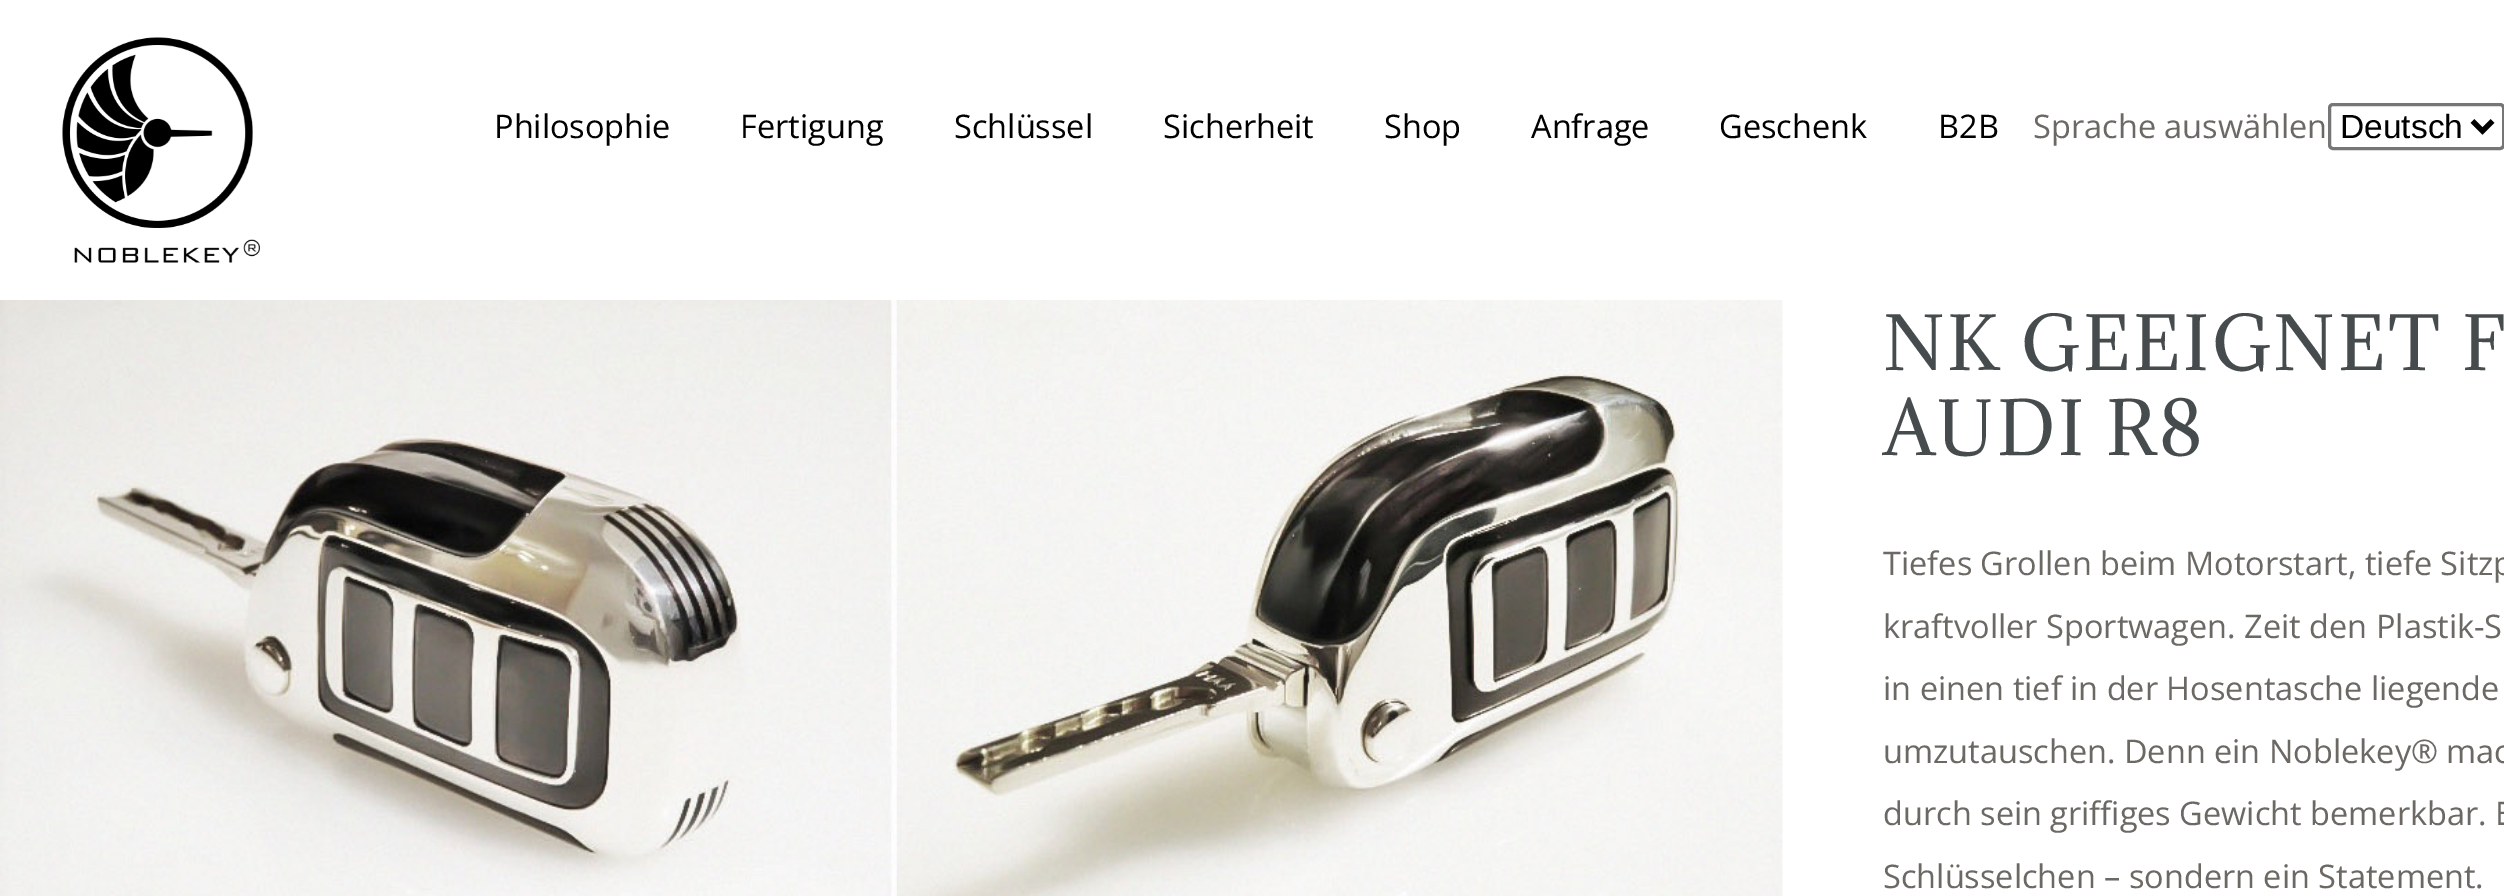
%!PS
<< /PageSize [2504 896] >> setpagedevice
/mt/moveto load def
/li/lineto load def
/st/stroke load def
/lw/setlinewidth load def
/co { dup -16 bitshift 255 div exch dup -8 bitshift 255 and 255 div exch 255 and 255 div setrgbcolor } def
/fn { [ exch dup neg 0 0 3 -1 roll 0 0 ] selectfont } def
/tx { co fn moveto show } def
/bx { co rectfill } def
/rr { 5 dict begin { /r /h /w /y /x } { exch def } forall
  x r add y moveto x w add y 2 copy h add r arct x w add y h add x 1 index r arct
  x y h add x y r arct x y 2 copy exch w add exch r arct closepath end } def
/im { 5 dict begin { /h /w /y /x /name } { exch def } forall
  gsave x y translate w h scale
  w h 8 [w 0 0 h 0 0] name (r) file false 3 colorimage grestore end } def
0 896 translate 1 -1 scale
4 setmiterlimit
0 0 2504 896 16#FFFFFF bx
(media/1.raw) 62 37 198 226 im
16#767676 co
3 lw
2329.5 104.5 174 44 3.5 rr st
16#000000 co
5 lw
2472.5 121 mt 2482.5 131 li 2492.5 121 li st
(media/2.raw) 0 300 1783 596 im
(Philosophie) 494 138 /OpenSans-Regular 32.5 16#000000 tx
(Fertigung) 740 138 /OpenSans-Regular 32.5 16#000000 tx
(Schlüssel) 954 138 /OpenSans-Regular 32.5 16#000000 tx
(Sicherheit) 1163 138 /OpenSans-Regular 32.5 16#000000 tx
(Shop) 1384 138 /OpenSans-Regular 32.5 16#000000 tx
(Anfrage) 1531 138 /OpenSans-Regular 32.5 16#000000 tx
(Geschenk) 1719 138 /OpenSans-Regular 32.5 16#000000 tx
(B2B) 1938 138 /OpenSans-Regular 32.5 16#000000 tx
(Sprache auswählen) 2033 138 /OpenSans-Regular 32.5 16#6C6965 tx
(Deutsch) 2340 138 /LiberationSans-Regular 33.5 16#000000 tx
/Adamina-Regular 70 fn
16#464C4D co
1883 370 mt 2.5 0 (NK GEEIGNET F) ashow
1883 455 mt 2.5 0 (AUDI R8) ashow
(Tiefes Grollen beim Motorstart, tiefe Sitzp) 1883 575 /OpenSans-Regular 32.5 16#6C6965 tx
(kraftvoller Sportwagen. Zeit den Plastik-S) 1883 638 /OpenSans-Regular 32.5 16#6C6965 tx
(in einen tief in der Hosentasche liegende) 1883 700 /OpenSans-Regular 32.5 16#6C6965 tx
(umzutauschen. Denn ein Noblekey® mac) 1883 763 /OpenSans-Regular 32.5 16#6C6965 tx
(durch sein griffiges Gewicht bemerkbar. E) 1883 825 /OpenSans-Regular 32.5 16#6C6965 tx
(Schlüsselchen – sondern ein Statement.) 1883 888 /OpenSans-Regular 32.5 16#6C6965 tx
showpage
